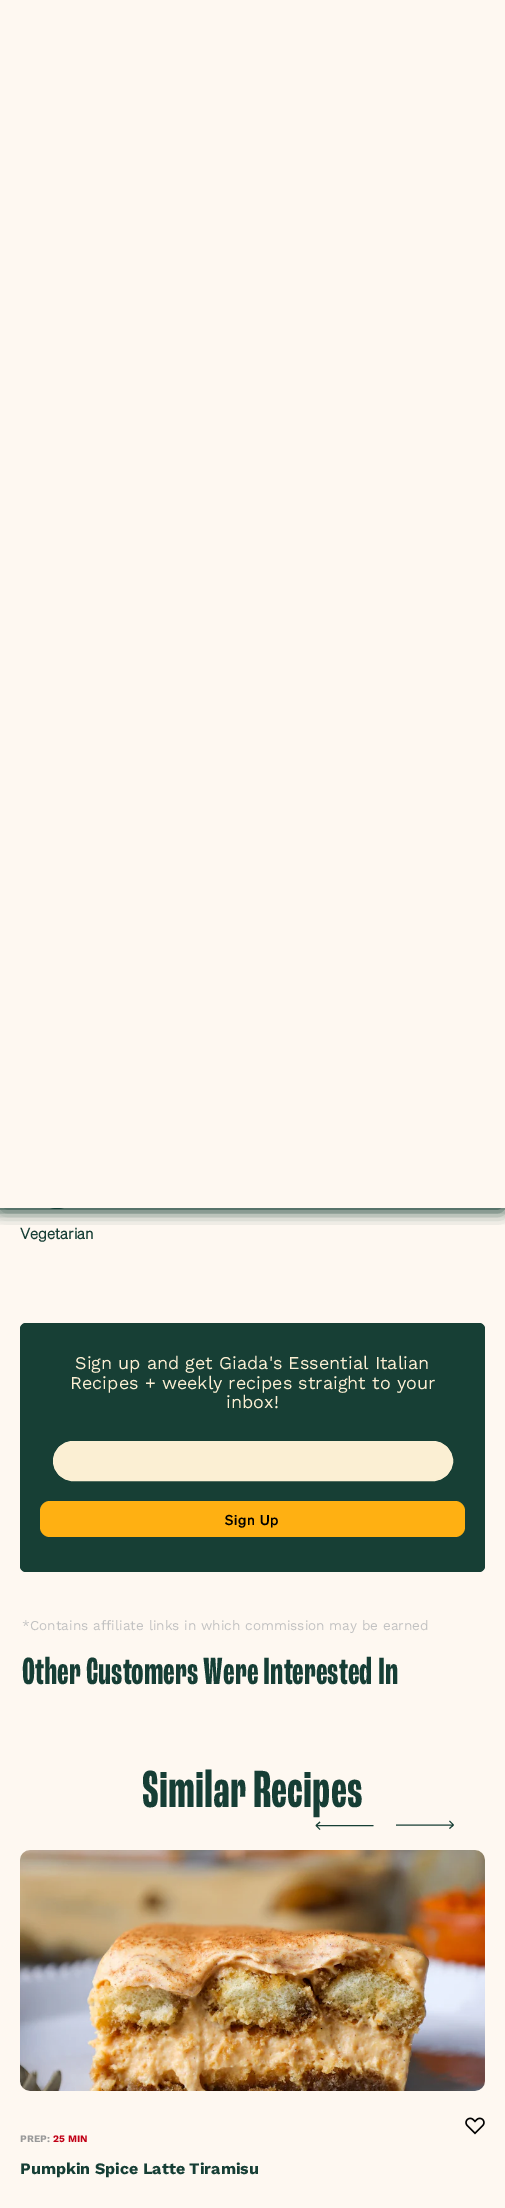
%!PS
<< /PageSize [505 2208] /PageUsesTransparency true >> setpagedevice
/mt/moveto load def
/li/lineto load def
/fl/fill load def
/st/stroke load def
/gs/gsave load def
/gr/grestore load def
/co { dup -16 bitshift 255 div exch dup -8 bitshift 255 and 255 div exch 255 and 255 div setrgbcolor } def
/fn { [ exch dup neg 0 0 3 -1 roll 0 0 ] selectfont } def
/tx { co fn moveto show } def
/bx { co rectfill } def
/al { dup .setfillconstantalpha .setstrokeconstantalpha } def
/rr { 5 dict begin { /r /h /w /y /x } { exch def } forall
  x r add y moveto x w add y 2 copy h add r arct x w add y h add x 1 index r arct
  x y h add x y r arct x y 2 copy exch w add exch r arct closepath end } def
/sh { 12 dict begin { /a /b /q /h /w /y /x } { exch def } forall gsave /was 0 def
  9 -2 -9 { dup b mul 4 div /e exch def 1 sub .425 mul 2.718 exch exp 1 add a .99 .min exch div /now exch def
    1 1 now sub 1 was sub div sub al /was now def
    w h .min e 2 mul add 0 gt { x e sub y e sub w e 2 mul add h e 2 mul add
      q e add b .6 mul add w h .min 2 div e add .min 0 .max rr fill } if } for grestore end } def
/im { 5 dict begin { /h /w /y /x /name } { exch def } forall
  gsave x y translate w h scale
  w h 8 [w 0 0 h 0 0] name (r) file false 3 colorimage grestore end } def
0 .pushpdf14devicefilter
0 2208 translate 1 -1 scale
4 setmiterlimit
0 0 505 2208 16#FEF8F1 bx
(media/1.raw) 50 1208 14 1 im
16#173F35 co
4 -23 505 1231 0 7.5 .7 sh
-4 -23 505 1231 0 7.5 .7 sh
-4 -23 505 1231 0 7.5 .7 sh
0 0 505 1208 16#FEF8F1 bx
16#173F35 co
20 1323 465 249 6 rr fl
20 1323 465 249 7 rr fl
16#FBEFD3 co
53.5 1441.5 399 39 19.5 rr gs fl gr
st
16#FFB012 co
40 1501 425 36 10 rr fl
16#173F35 co
320 1822 mt 316 1825.5 li 316 1825.5 mt 320 1829.5 li 316 1825.5 mt 373.5 1825.5 li st
449.5 1828.5 mt 453.5 1825 li 453.5 1825 mt 449.5 1821 li 453.5 1825 mt 396 1825 li st
(media/2.raw) 20 1850 465 241 im
(media/3.raw) 465 2117 20 18 im
(Vegetarian) 20 1239 /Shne-Bold 15 16#163E35 tx
(Sign up and get Giada's Essential Italian) 75 1369 /WorkSans-Regular 18 16#FBEFD3 tx
(Recipes + weekly recipes straight to your) 70 1389 /WorkSans-Regular 18 16#FBEFD3 tx
(inbox!) 226 1408 /WorkSans-Regular 18 16#FBEFD3 tx
/Shne-Medium 14 fn
16#000000 co
225 1525 mt .75 0 (Sign Up) ashow
(*Contains affiliate links in which commission may be earned) 22 1630 /WorkSans-Regular 13.6 16#C2C2C2 tx
(Other Customers Were Interested In) 22 1684 /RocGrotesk-Bold 40 16#163E35 tx
(Similar Recipes) 142 1807 /RocGrotesk-Bold 55 16#163E35 tx
(PREP:) 20 2142 /WorkSans-Bold 10 16#999999 tx
(25 MIN) 53 2142 /WorkSans-Bold 10 16#C10016 tx
(Pumpkin Spice Latte Tiramisu) 20 2174 /WorkSans-Bold 16 16#163E35 tx
.poppdf14devicefilter showpage
